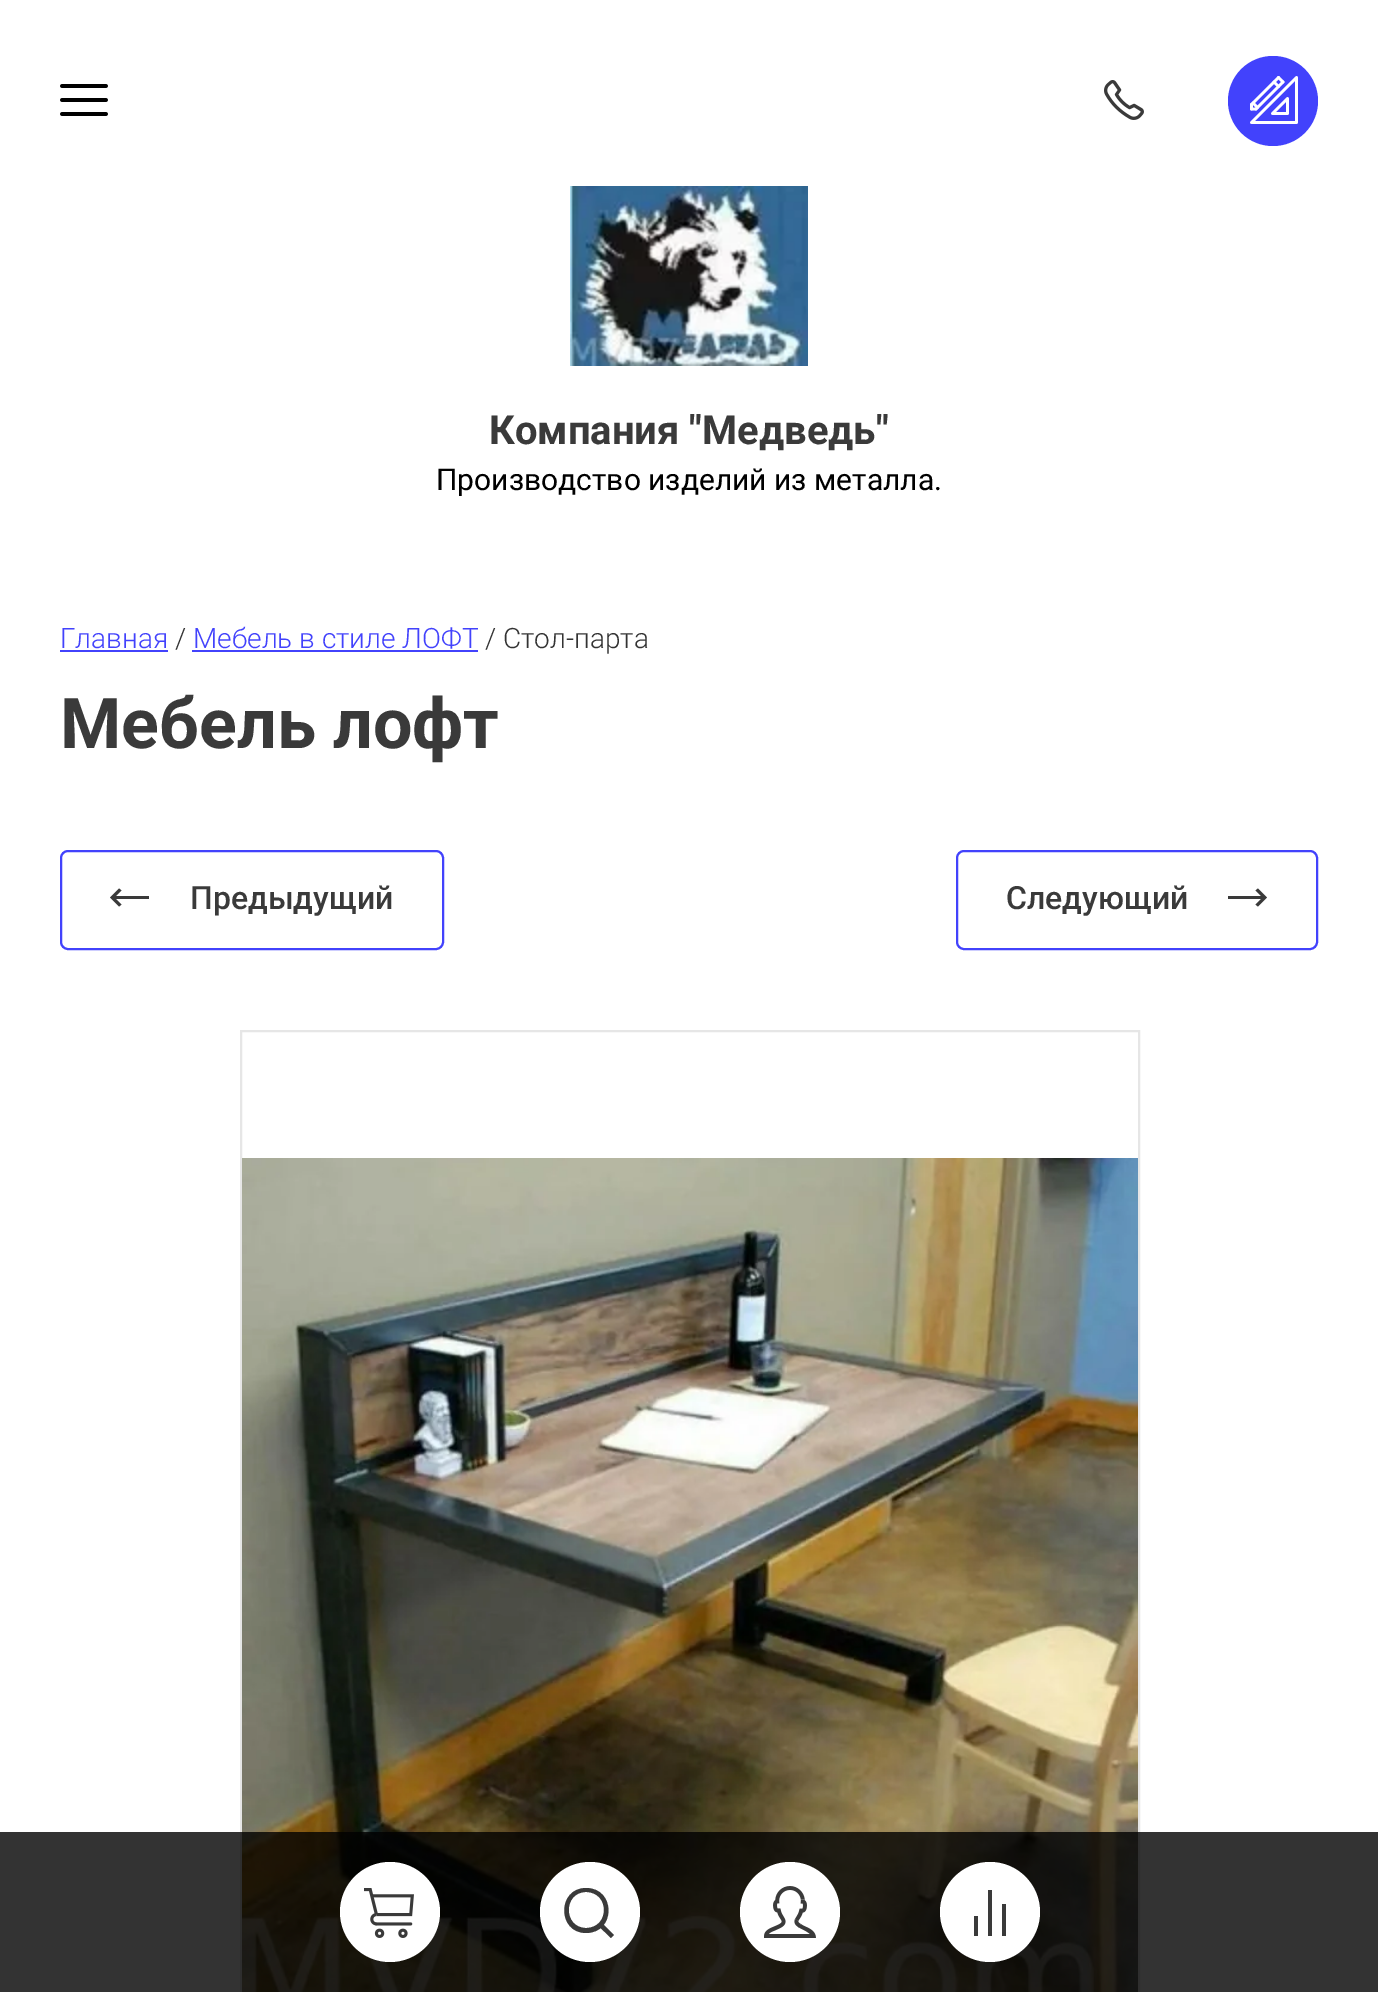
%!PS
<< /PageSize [1378 1992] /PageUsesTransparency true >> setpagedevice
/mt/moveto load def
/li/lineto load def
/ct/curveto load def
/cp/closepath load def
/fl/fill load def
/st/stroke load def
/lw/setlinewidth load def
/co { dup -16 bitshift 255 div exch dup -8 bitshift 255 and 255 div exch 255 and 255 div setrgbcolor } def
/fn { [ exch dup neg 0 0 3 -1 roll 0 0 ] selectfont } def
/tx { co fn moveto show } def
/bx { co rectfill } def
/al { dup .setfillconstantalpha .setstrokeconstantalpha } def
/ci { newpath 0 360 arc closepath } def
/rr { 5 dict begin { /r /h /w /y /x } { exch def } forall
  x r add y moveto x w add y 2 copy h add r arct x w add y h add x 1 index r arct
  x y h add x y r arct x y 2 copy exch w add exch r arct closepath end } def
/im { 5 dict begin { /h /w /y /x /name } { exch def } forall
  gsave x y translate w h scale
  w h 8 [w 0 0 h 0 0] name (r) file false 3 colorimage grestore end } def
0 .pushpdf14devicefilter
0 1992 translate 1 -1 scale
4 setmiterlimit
0 0 1378 1992 16#FFFFFF bx
(media/1.raw) 60 84 48 32 im
(media/2.raw) 1104 80 40 40 im
16#4242FC co
1273 101 45 ci fl
(media/3.raw) 1250 76 48 48 im
(media/4.raw) 570 186 238 180 im
60 650 108 2 16#4242FC bx
192 650 286 2 16#4242FC bx
2 lw
61 851 382 98 7 rr st
16#3A3A3A co
119 906.5 mt 110 897.5 li 119 888.5 li 121.5 890.5 li 114.5 897.5 li 121.5 904.5 li cp fl
112 896 37 3 16#3A3A3A bx
16#4242FC co
957 851 360 98 7 rr st
16#3A3A3A co
1258 906.5 mt 1255.5 904.5 li 1262.5 897.5 li 1255.5 890.5 li 1258 888.5 li 1267 897.5 li cp fl
1228 896 37 3 16#3A3A3A bx
16#E6E6E6 co
241 1031 898 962 rectstroke
(media/5.raw) 242 1158 896 834 im
0.8 al
0 1832 1378 160 16#000000 bx
1 al
16#FFFFFF co
390 1912 50 ci fl
(media/6.raw) 364 1888 50 50 im
590 1912 50 ci fl
16#3A3A3A co
586 1933 mt 557 1933 557 1888 586 1888 ct 616 1888 616 1933 586 1933 ct cp 586 1892 mt 563 1892 563 1928 586 1928 ct 610 1928 610 1892 586 1892 ct cp fl
614 1935 mt 601 1922 li 598 1925.5 li 611 1938 li cp fl
16#FFFFFF co
790 1912 50 ci fl
(media/7.raw) 764 1886 52 52 im
990 1912 50 ci fl
16#3A3A3A co
1002 1904 mt 1006 1904 li 1006 1936 li 1002 1936 li cp 988 1890 mt 992 1890 li 992 1936 li 988 1936 li cp 974 1916 mt 978 1916 li 978 1936 li 974 1936 li cp fl
(Компания "Медведь") 489 444 /Roboto-Bold 40 16#3A3A3A tx
(Производство изделий из металла.) 436 490 /Roboto-Regular 30 16#000000 tx
(Главная) 60 648 /Roboto-Light 28 16#4242FC tx
(/) 175 648 /Roboto-Light 28 16#333333 tx
(Мебель в стиле ЛОФТ) 193 648 /Roboto-Light 28 16#4242FC tx
(/ Стол-парта) 485 648 /Roboto-Light 28 16#333333 tx
(Мебель лофт) 60 748 /Roboto-Bold 70 16#3A3A3A tx
(Предыдущий) 190 909 /Roboto-Medium 32 16#3A3A3A tx
(Следующий) 1006 909 /Roboto-Medium 32 16#3A3A3A tx
.poppdf14devicefilter showpage
